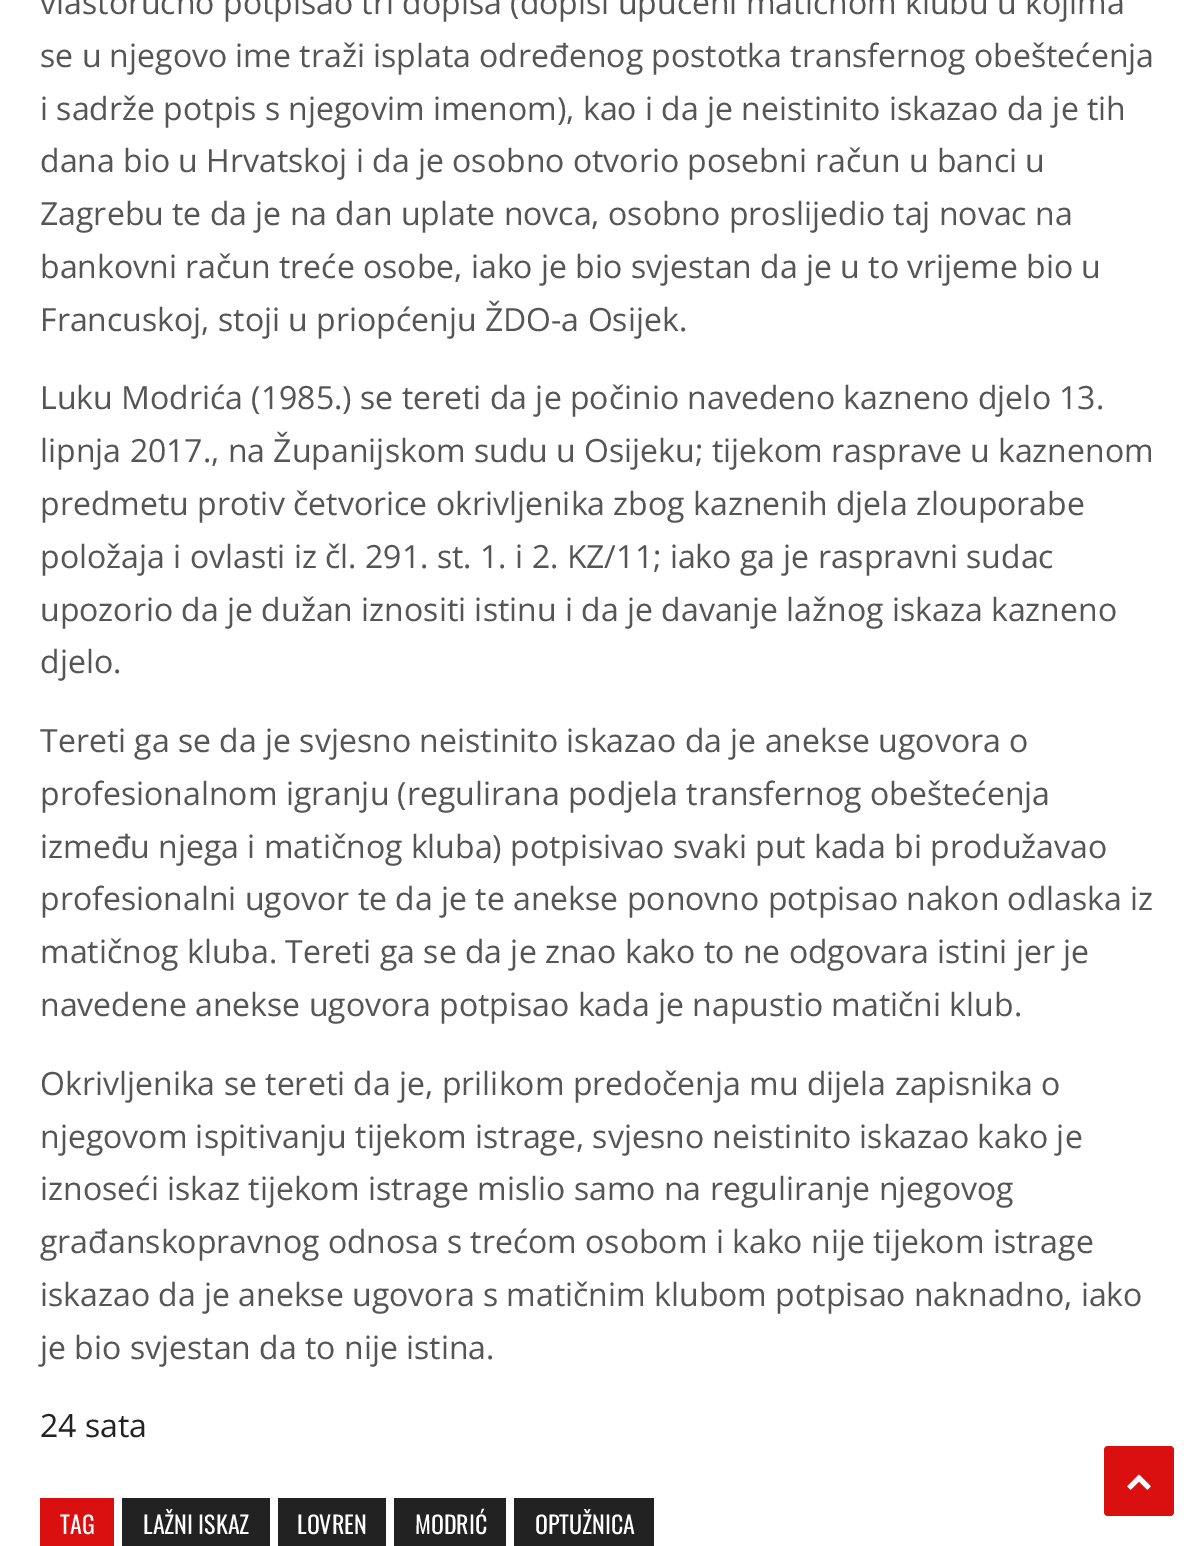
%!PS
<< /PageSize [1204 1546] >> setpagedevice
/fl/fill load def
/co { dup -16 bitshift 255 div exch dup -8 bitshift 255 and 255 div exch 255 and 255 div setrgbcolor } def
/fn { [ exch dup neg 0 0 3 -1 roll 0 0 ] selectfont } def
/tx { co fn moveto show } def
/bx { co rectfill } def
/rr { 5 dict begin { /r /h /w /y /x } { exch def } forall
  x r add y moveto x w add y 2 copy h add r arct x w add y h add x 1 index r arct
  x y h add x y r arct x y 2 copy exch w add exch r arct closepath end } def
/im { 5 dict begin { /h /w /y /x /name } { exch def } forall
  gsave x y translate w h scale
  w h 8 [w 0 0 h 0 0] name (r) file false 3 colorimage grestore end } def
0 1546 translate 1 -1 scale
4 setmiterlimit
0 0 1204 1546 16#FFFFFF bx
40 1498 74 48 16#DA1010 bx
122 1498 148 48 16#222222 bx
278 1498 108 48 16#222222 bx
394 1498 112 48 16#222222 bx
514 1498 140 48 16#222222 bx
16#DA1010 co
1104 1446 70 70 4 rr fl
(media/1.raw) 1127 1474 24 16 im
(vlastoručno potpisao tri dopisa \(dopisi upućeni matičnom klubu u kojima) 40 14 /OpenSans-Regular 32 16#555555 tx
(se u njegovo ime traži isplata određenog postotka transfernog obeštećenja) 40 67 /OpenSans-Regular 32 16#555555 tx
(i sadrže potpis s njegovim imenom\), kao i da je neistinito iskazao da je tih) 40 120 /OpenSans-Regular 32 16#555555 tx
(dana bio u Hrvatskoj i da je osobno otvorio posebni račun u banci u) 40 172 /OpenSans-Regular 32 16#555555 tx
(Zagrebu te da je na dan uplate novca, osobno proslijedio taj novac na) 40 225 /OpenSans-Regular 32 16#555555 tx
(bankovni račun treće osobe, iako je bio svjestan da je u to vrijeme bio u) 40 278 /OpenSans-Regular 32 16#555555 tx
(Francuskoj, stoji u priopćenju ŽDO-a Osijek.) 40 331 /OpenSans-Regular 32 16#555555 tx
(Luku Modrića \(1985.\) se tereti da je počinio navedeno kazneno djelo 13.) 40 409 /OpenSans-Regular 32 16#555555 tx
(lipnja 2017., na Županijskom sudu u Osijeku; tijekom rasprave u kaznenom) 40 462 /OpenSans-Regular 32 16#555555 tx
(predmetu protiv četvorice okrivljenika zbog kaznenih djela zlouporabe) 40 515 /OpenSans-Regular 32 16#555555 tx
(položaja i ovlasti iz čl. 291. st. 1. i 2. KZ/11; iako ga je raspravni sudac) 40 568 /OpenSans-Regular 32 16#555555 tx
(upozorio da je dužan iznositi istinu i da je davanje lažnog iskaza kazneno) 40 621 /OpenSans-Regular 32 16#555555 tx
(djelo.) 40 673 /OpenSans-Regular 32 16#555555 tx
(Tereti ga se da je svjesno neistinito iskazao da je anekse ugovora o) 40 752 /OpenSans-Regular 32 16#555555 tx
(profesionalnom igranju \(regulirana podjela transfernog obeštećenja) 40 805 /OpenSans-Regular 32 16#555555 tx
(između njega i matičnog kluba\) potpisivao svaki put kada bi produžavao) 40 858 /OpenSans-Regular 32 16#555555 tx
(profesionalni ugovor te da je te anekse ponovno potpisao nakon odlaska iz) 40 910 /OpenSans-Regular 32 16#555555 tx
(matičnog kluba. Tereti ga se da je znao kako to ne odgovara istini jer je) 40 963 /OpenSans-Regular 32 16#555555 tx
(navedene anekse ugovora potpisao kada je napustio matični klub.) 40 1016 /OpenSans-Regular 32 16#555555 tx
(Okrivljenika se tereti da je, prilikom predočenja mu dijela zapisnika o) 40 1095 /OpenSans-Regular 32 16#555555 tx
(njegovom ispitivanju tijekom istrage, svjesno neistinito iskazao kako je) 40 1148 /OpenSans-Regular 32 16#555555 tx
(iznoseći iskaz tijekom istrage mislio samo na reguliranje njegovog) 40 1200 /OpenSans-Regular 32 16#555555 tx
(građanskopravnog odnosa s trećom osobom i kako nije tijekom istrage) 40 1253 /OpenSans-Regular 32 16#555555 tx
(iskazao da je anekse ugovora s matičnim klubom potpisao naknadno, iako) 40 1306 /OpenSans-Regular 32 16#555555 tx
(je bio svjestan da to nije istina.) 40 1359 /OpenSans-Regular 32 16#555555 tx
(24 sata) 40 1437 /OpenSans-Regular 32 16#222222 tx
(TAG) 60 1534 /Oswald-Regular 24 16#FFFFFF tx
(LAŽNI ISKAZ) 143 1534 /Oswald-Regular 24 16#FFFFFF tx
(LOVREN) 297 1534 /Oswald-Regular 24 16#FFFFFF tx
(MODRIĆ) 415 1534 /Oswald-Regular 24 16#FFFFFF tx
(OPTUŽNICA) 535 1534 /Oswald-Regular 24 16#FFFFFF tx
showpage
